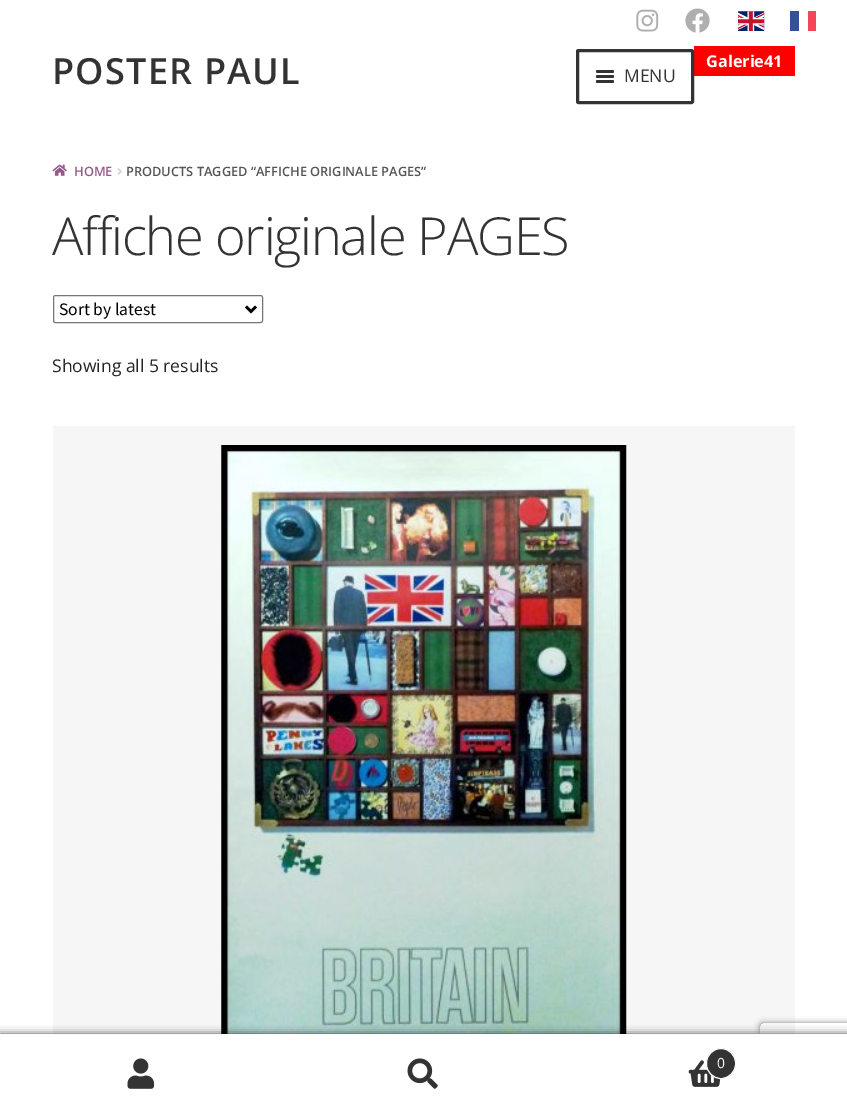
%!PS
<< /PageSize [847 1114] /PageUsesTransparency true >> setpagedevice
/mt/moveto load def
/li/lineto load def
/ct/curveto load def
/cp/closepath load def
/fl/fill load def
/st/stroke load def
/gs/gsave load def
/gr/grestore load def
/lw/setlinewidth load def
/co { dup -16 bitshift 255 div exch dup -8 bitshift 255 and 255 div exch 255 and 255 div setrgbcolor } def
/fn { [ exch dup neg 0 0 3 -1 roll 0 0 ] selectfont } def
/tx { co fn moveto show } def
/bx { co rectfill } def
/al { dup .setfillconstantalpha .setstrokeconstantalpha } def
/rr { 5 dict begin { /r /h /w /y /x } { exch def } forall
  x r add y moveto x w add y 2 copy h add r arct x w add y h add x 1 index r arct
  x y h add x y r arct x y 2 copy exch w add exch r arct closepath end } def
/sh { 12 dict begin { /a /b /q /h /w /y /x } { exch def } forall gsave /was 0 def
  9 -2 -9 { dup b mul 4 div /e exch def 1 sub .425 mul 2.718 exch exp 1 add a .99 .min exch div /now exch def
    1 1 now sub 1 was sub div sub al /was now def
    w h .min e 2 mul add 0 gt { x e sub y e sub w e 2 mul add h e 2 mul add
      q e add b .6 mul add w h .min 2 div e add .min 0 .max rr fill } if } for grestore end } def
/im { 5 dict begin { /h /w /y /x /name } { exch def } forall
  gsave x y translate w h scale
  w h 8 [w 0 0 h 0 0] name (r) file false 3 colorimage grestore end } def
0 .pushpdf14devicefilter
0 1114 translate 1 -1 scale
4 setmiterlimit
0 0 847 1114 16#FFFFFF bx
(media/1.raw) 636 9 23 23 im
(media/2.raw) 685 8 25 25 im
(media/3.raw) 738 11 27 20 im
790 11 9 20 16#335199 bx
808 11 8 20 16#F54659 bx
694 46 101 30 16#FF0000 bx
16#333333 co
3 lw
577.5 50.5 115 52 1 rr st
596 70 18 3 1.5 rr fl
596 75 18 3 1.5 rr fl
596 80 18 3 1.5 rr fl
(media/4.raw) 52 164 15 12 im
(media/5.raw) 117 168 5 7 im
16#767676 co
1 lw
53.5 295.5 209 27 2 rr st
16#000000 co
2.5 lw
246 306.5 mt 251 311.5 li 256 306.5 li st
53 426 742 608 16#F6F6F6 bx
(media/6.raw) 221 445 406 589 im
16#000000 co
0 1034 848 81 0 4 .7 sh
gs
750 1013 mt 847 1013 li 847 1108 li 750 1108 li cp 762.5 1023 mt 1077.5 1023 li 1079 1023 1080 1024 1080 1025.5 ct 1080 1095.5 li 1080 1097 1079 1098 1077.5 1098 ct 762.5 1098 li 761 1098 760 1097 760 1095.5 ct 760 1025.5 li 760 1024 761 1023 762.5 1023 ct cp eoclip newpath
16#808080 co
760 1023 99 75 2.5 3 1 sh
gr
0 1034 847 80 16#FFFFFF bx
(media/7.raw) 127 1058 28 31 im
(media/8.raw) 407 1058 31 31 im
(media/9.raw) 688 1060 33 27 im
16#333333 co
706.5 1048.5 29 30 14.5 rr gs fl gr
16#FFFFFF co
1 lw
st
/OpenSans-SemiBold 36 fn
16#333333 co
52 84 mt 1.25 0 (POSTER PAUL) ashow
(Galerie41) 706 67 /OpenSans-Bold 16.25 16#FFFFFF tx
(MENU) 624 82 /OpenSans-Regular 17.5 16#333333 tx
(HOME) 74 176 /OpenSans-SemiBold 12.8 16#96588A tx
(PRODUCTS TAGGED “AFFICHE ORIGINALE PAGES”) 126 176 /OpenSans-SemiBold 12.8 16#555555 tx
/OpenSans-Light 52.4 fn
16#333333 co
52 255 mt -1.25 0 (Affiche originale PAGES) ashow
(Sort by latest) 59 315 /SourceSansPro-Regular 17.5 16#000000 tx
(Showing all 5 results) 52 372 /OpenSans-Regular 17.5 16#262424 tx
(0) 717 1068 /OpenSans-Regular 14 16#FFFFFF tx
.poppdf14devicefilter showpage
